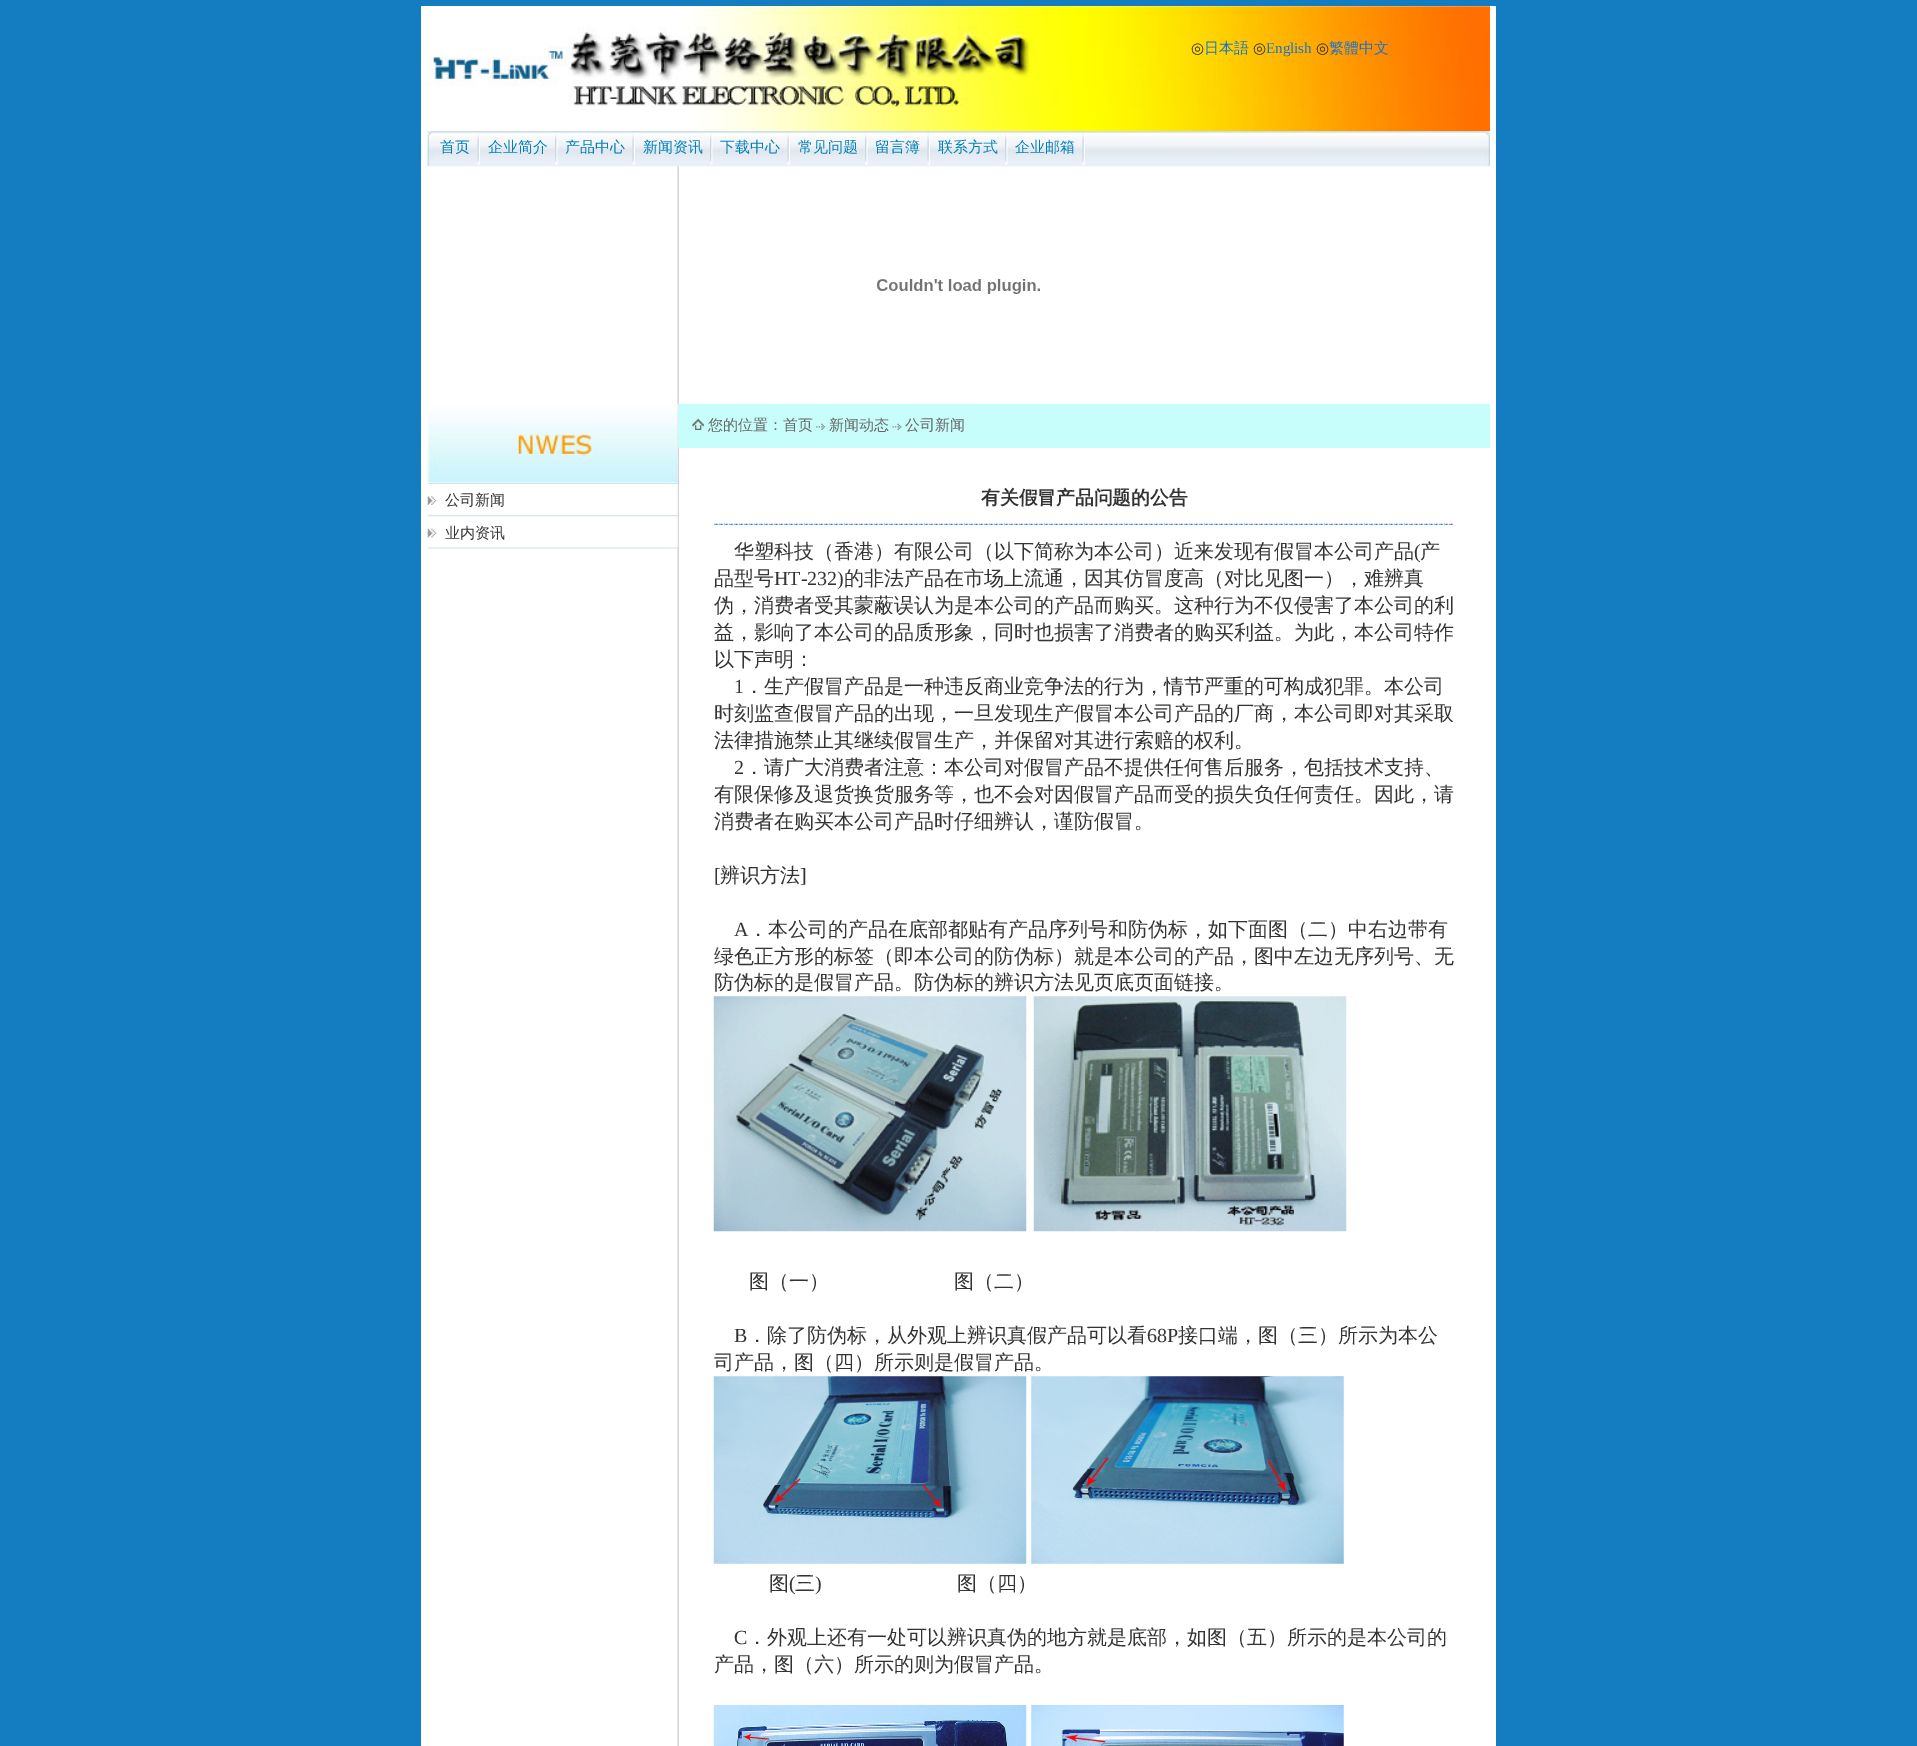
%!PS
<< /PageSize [1917 1746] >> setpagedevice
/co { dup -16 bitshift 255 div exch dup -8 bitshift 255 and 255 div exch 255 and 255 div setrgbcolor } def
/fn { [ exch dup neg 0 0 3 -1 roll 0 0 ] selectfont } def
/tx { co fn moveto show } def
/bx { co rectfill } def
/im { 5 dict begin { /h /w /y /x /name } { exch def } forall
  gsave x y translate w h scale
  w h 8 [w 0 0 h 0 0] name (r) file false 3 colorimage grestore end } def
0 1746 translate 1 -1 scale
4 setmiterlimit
0 0 1917 1746 16#147CC0 bx
421 6 1075 1740 16#FFFFFF bx
(media/1.raw) 427 6 1063 126 im
(media/2.raw) 427 131 1063 36 im
(media/3.raw) 427 131 6 35 im
(media/4.raw) 477 131 3 35 im
(media/5.raw) 555 131 3 35 im
(media/4.raw) 632 131 3 35 im
(media/5.raw) 710 131 3 35 im
(media/6.raw) 787 131 3 35 im
(media/7.raw) 865 131 3 35 im
(media/8.raw) 927 131 3 35 im
(media/9.raw) 1005 131 3 35 im
(media/10.raw) 1082 131 3 35 im
(media/11.raw) 1485 131 5 35 im
(media/12.raw) 677 166 2 1580 im
(media/13.raw) 877 279 163 15 im
428 483 250 1 16#D0E3EE bx
(media/14.raw) 427 404 251 79 im
(media/15.raw) 427 484 251 65 im
(media/16.raw) 427 496 10 9 im
(media/17.raw) 427 528 10 10 im
678 404 812 44 16#C7FEFB bx
(media/18.raw) 692 418 12 12 im
(media/19.raw) 816 423 10 7 im
(media/20.raw) 892 423 10 7 im
(media/21.raw) 713 523 741 2 im
(media/22.raw) 713 996 314 236 im
(media/23.raw) 1033 996 314 236 im
(media/24.raw) 713 1376 314 188 im
(media/25.raw) 1031 1376 313 188 im
(media/26.raw) 713 1705 314 41 im
(media/27.raw) 1031 1705 313 41 im
(◎) 1191 53 /DejaVuSans-Regular 15 16#333333 tx
(日本語) 1204 53 /WenQuanYiZenHei-Medium 15 16#1874CD tx
(◎) 1253 53 /DejaVuSans-Regular 15 16#333333 tx
(English) 1266 53 /LiberationSerif-Regular 15 16#1874CD tx
(◎) 1316 53 /DejaVuSans-Regular 15 16#333333 tx
(繁體中文) 1329 53 /WenQuanYiZenHei-Medium 15 16#1874CD tx
(首页) 440 152 /WenQuanYiZenHei-Medium 15 16#0080B6 tx
(企业简介) 488 152 /WenQuanYiZenHei-Medium 15 16#0080B6 tx
(产品中心) 565 152 /WenQuanYiZenHei-Medium 15 16#0080B6 tx
(新闻资讯) 643 152 /WenQuanYiZenHei-Medium 15 16#0080B6 tx
(下载中心) 720 152 /WenQuanYiZenHei-Medium 15 16#0080B6 tx
(常见问题) 798 152 /WenQuanYiZenHei-Medium 15 16#0080B6 tx
(留言簿) 875 152 /WenQuanYiZenHei-Medium 15 16#0080B6 tx
(联系方式) 938 152 /WenQuanYiZenHei-Medium 15 16#0080B6 tx
(企业邮箱) 1015 152 /WenQuanYiZenHei-Medium 15 16#0080B6 tx
(公司新闻) 445 505 /WenQuanYiZenHei-Medium 15 16#333333 tx
(业内资讯) 445 538 /WenQuanYiZenHei-Medium 15 16#333333 tx
(您的位置：首页) 708 430 /WenQuanYiZenHei-Medium 15 16#666666 tx
(新闻动态) 829 430 /WenQuanYiZenHei-Medium 15 16#666666 tx
(公司新闻) 905 430 /WenQuanYiZenHei-Medium 15 16#666666 tx
(有关假冒产品问题的公告) 981 504 /WenQuanYiZenHei-Bold 18.75 16#333333 tx
(华塑科技（香港）有限公司（以下简称为本公司）近来发现有假冒本公司产品) 734 558 /WenQuanYiZenHei-Medium 20 16#333333 tx
(\() 1414 558 /LiberationSerif-Regular 20 16#333333 tx
(产) 1420 558 /WenQuanYiZenHei-Medium 20 16#333333 tx
(品型号) 714 585 /WenQuanYiZenHei-Medium 20 16#333333 tx
(HT-232\)) 774 585 /LiberationSerif-Regular 20 16#333333 tx
(的非法产品在市场上流通，因其仿冒度高（对比见图一），难辨真) 844 585 /WenQuanYiZenHei-Medium 20 16#333333 tx
(伪，消费者受其蒙蔽误认为是本公司的产品而购买。这种行为不仅侵害了本公司的利) 714 612 /WenQuanYiZenHei-Medium 20 16#333333 tx
(益，影响了本公司的品质形象，同时也损害了消费者的购买利益。为此，本公司特作) 714 639 /WenQuanYiZenHei-Medium 20 16#333333 tx
(以下声明：) 714 666 /WenQuanYiZenHei-Medium 20 16#333333 tx
(1) 734 693 /LiberationSerif-Regular 20 16#333333 tx
(．生产假冒产品是一种违反商业竞争法的行为，情节严重的可构成犯罪。本公司) 744 693 /WenQuanYiZenHei-Medium 20 16#333333 tx
(时刻监查假冒产品的出现，一旦发现生产假冒本公司产品的厂商，本公司即对其采取) 714 720 /WenQuanYiZenHei-Medium 20 16#333333 tx
(法律措施禁止其继续假冒生产，并保留对其进行索赔的权利。) 714 747 /WenQuanYiZenHei-Medium 20 16#333333 tx
(2) 734 774 /LiberationSerif-Regular 20 16#333333 tx
(．请广大消费者注意：本公司对假冒产品不提供任何售后服务，包括技术支持、) 744 774 /WenQuanYiZenHei-Medium 20 16#333333 tx
(有限保修及退货换货服务等，也不会对因假冒产品而受的损失负任何责任。因此，请) 714 801 /WenQuanYiZenHei-Medium 20 16#333333 tx
(消费者在购买本公司产品时仔细辨认，谨防假冒。) 714 828 /WenQuanYiZenHei-Medium 20 16#333333 tx
([) 714 882 /LiberationSerif-Regular 20 16#333333 tx
(辨识方法) 720 882 /WenQuanYiZenHei-Medium 20 16#333333 tx
(]) 800 882 /LiberationSerif-Regular 20 16#333333 tx
(A) 734 936 /LiberationSerif-Regular 20 16#333333 tx
(．本公司的产品在底部都贴有产品序列号和防伪标，如下面图（二）中右边带有) 748 936 /WenQuanYiZenHei-Medium 20 16#333333 tx
(绿色正方形的标签（即本公司的防伪标）就是本公司的产品，图中左边无序列号、无) 714 963 /WenQuanYiZenHei-Medium 20 16#333333 tx
(防伪标的是假冒产品。防伪标的辨识方法见页底页面链接。) 714 989 /WenQuanYiZenHei-Medium 20 16#333333 tx
(图（一）) 749 1288 /WenQuanYiZenHei-Medium 20 16#333333 tx
(图（二）) 954 1288 /WenQuanYiZenHei-Medium 20 16#333333 tx
(B) 734 1342 /LiberationSerif-Regular 20 16#333333 tx
(．除了防伪标，从外观上辨识真假产品可以看) 747 1342 /WenQuanYiZenHei-Medium 20 16#333333 tx
(68P) 1147 1342 /LiberationSerif-Regular 20 16#333333 tx
(接口端，图（三）所示为本公) 1178 1342 /WenQuanYiZenHei-Medium 20 16#333333 tx
(司产品，图（四）所示则是假冒产品。) 714 1369 /WenQuanYiZenHei-Medium 20 16#333333 tx
(图) 769 1590 /WenQuanYiZenHei-Medium 20 16#333333 tx
(\() 789 1590 /LiberationSerif-Regular 20 16#333333 tx
(三) 795 1590 /WenQuanYiZenHei-Medium 20 16#333333 tx
(\)) 815 1590 /LiberationSerif-Regular 20 16#333333 tx
(图（四）) 957 1590 /WenQuanYiZenHei-Medium 20 16#333333 tx
(C) 734 1644 /LiberationSerif-Regular 20 16#333333 tx
(．外观上还有一处可以辨识真伪的地方就是底部，如图（五）所示的是本公司的) 747 1644 /WenQuanYiZenHei-Medium 20 16#333333 tx
(产品，图（六）所示的则为假冒产品。) 714 1671 /WenQuanYiZenHei-Medium 20 16#333333 tx
showpage
